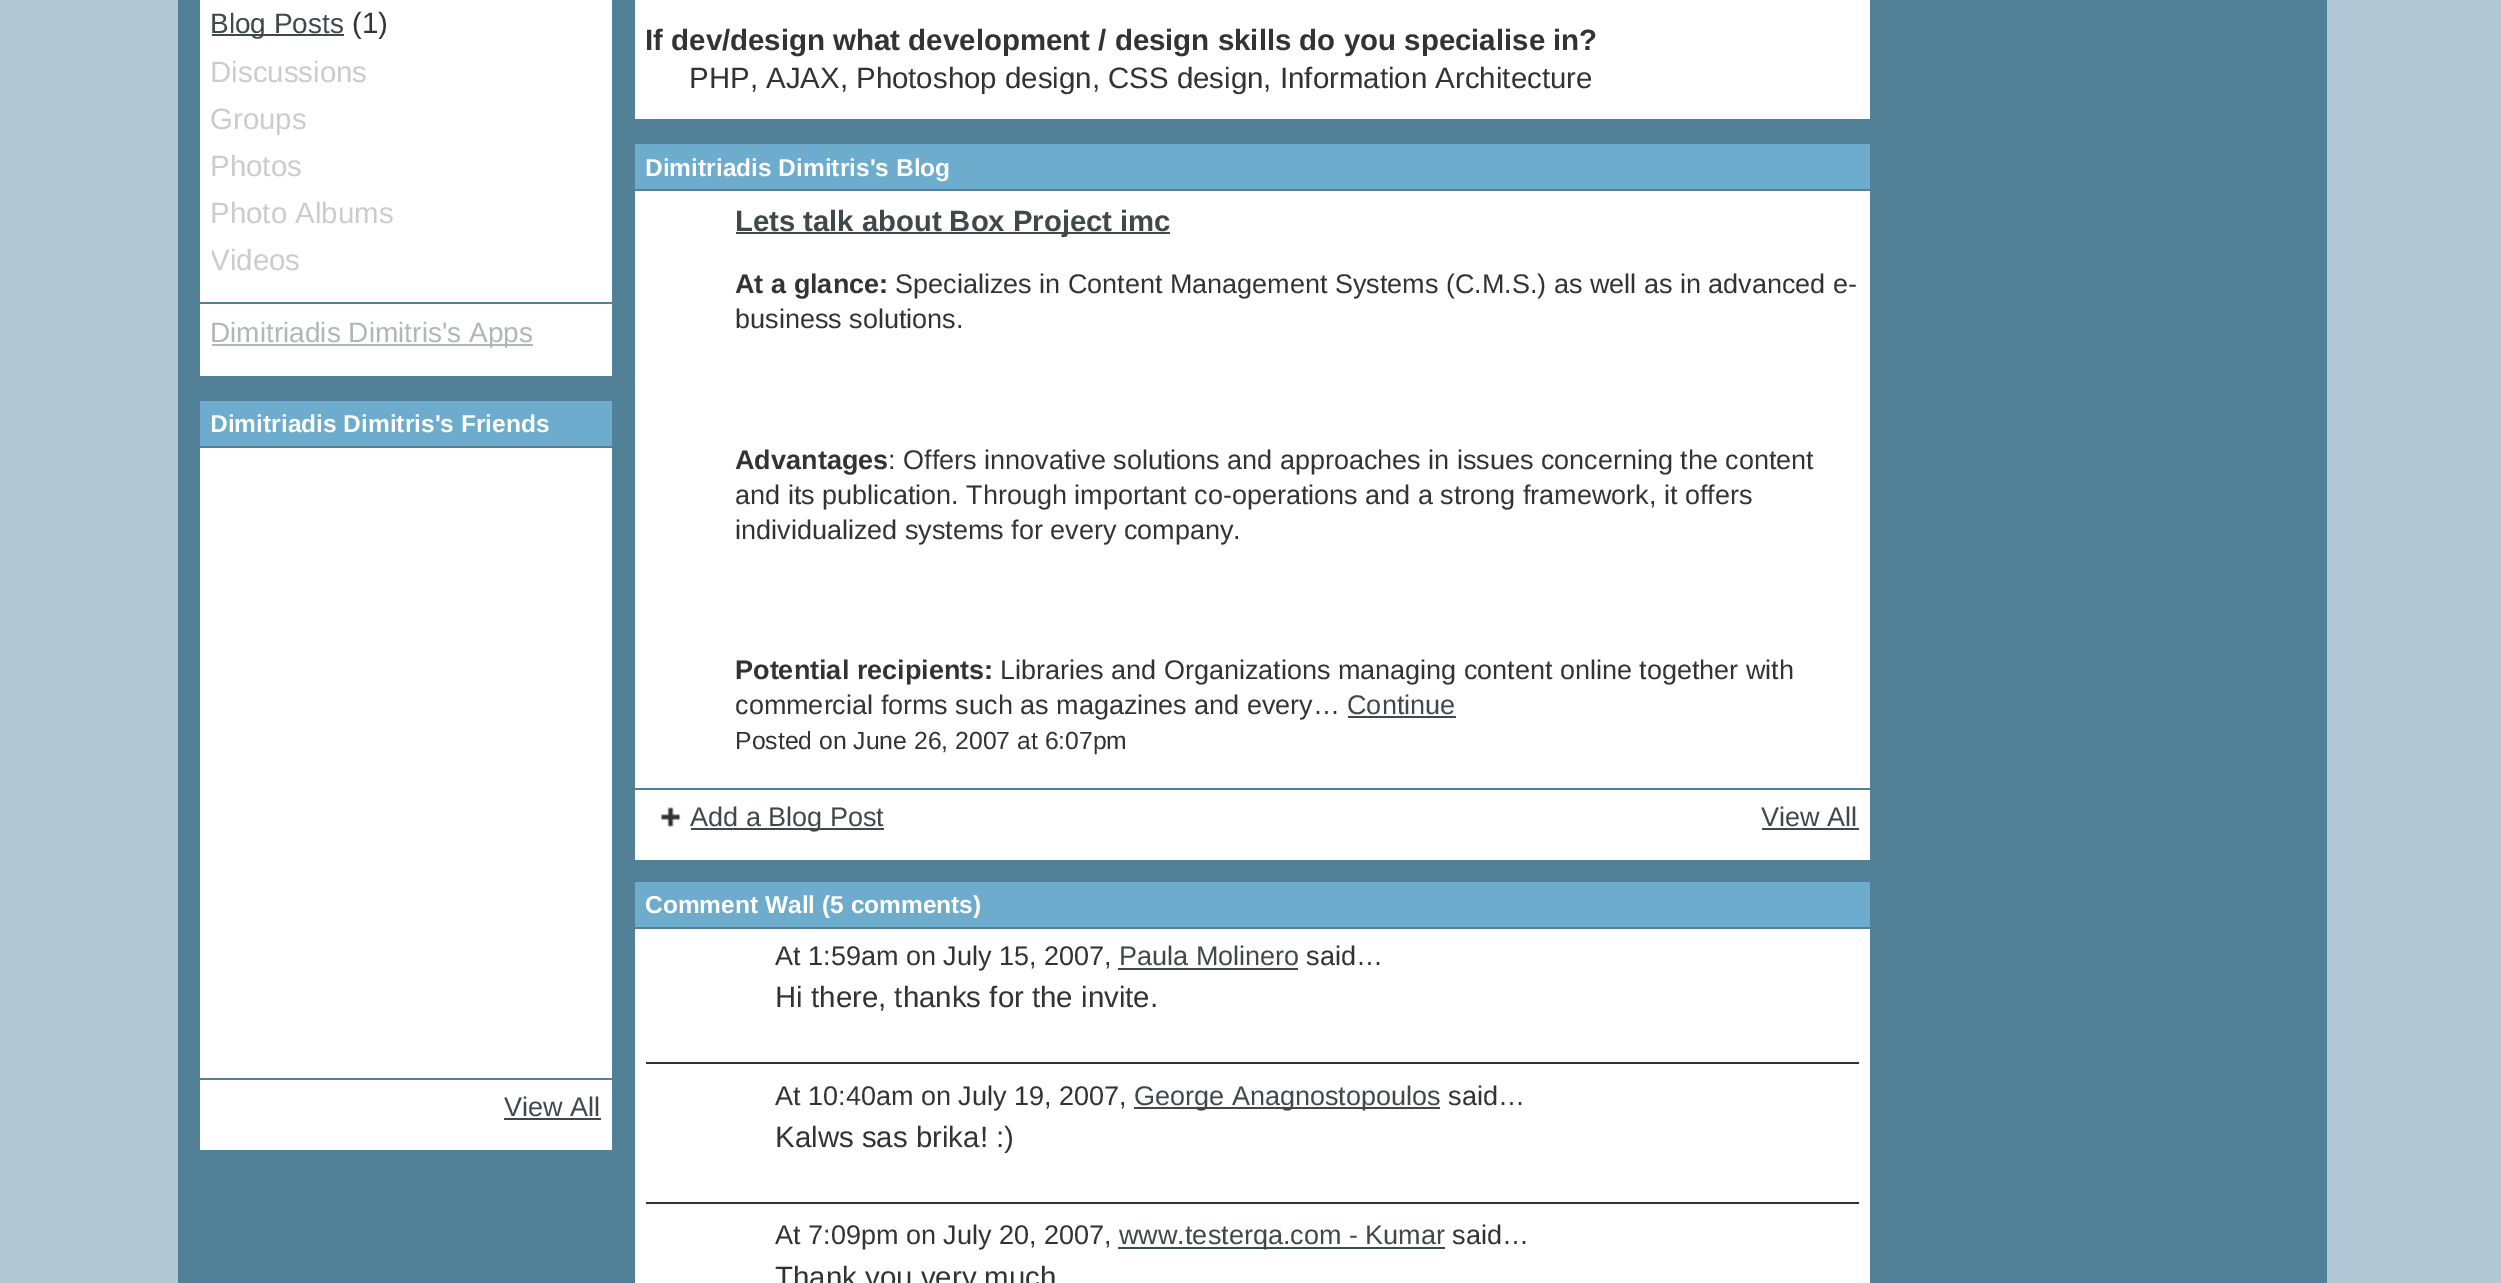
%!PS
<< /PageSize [2501 1283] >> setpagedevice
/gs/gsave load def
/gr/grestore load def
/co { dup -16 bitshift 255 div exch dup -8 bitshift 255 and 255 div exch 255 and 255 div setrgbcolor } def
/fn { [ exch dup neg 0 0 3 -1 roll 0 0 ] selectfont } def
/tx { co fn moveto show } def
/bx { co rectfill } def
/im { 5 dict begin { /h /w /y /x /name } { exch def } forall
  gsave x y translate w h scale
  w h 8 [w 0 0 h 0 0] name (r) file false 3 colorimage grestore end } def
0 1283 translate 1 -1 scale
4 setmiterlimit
0 0 2501 1283 16#B1C8D4 bx
178 0 2149 1283 16#528097 bx
200 0 412 302 16#FFFFFF bx
212 34 132 2 16#3F484B bx
200 304 412 72 16#FFFFFF bx
212 344 321 2 16#B2B6B7 bx
200 401 412 45 16#6DACCC bx
200 448 412 630 16#FFFFFF bx
200 1080 412 70 16#FFFFFF bx
504 1118 97 2 16#3F484B bx
635 0 1235 119 16#FFFFFF bx
635 144 1235 45 16#6DACCC bx
635 191 1235 597 16#FFFFFF bx
736 232 434 2 16#3F484B bx
1348 716 108 2 16#3F484B bx
635 790 1235 70 16#FFFFFF bx
(media/1.raw) 661 807 20 20 im
691 828 193 2 16#3F484B bx
1762 828 97 2 16#3F484B bx
635 882 1235 45 16#6DACCC bx
635 929 1235 354 16#FFFFFF bx
646 1062 1213 2 16#333333 bx
1118 968 180 2 16#3F484B bx
646 1202 1213 2 16#333333 bx
1134 1107 306 2 16#3F484B bx
1118 1247 327 2 16#3F484B bx
(Blog Posts) 210 33 /LiberationSans-Regular 28 16#3F484B tx
(\(1\)) 352 33 /LiberationSans-Regular 29.45 16#333333 tx
(Discussions) 210 82 /LiberationSans-Regular 29.45 16#CCCCCC tx
(Groups) 210 129 /LiberationSans-Regular 29.45 16#CCCCCC tx
(Photos) 210 176 /LiberationSans-Regular 29.45 16#CCCCCC tx
(Photo Albums) 210 223 /LiberationSans-Regular 29.45 16#CCCCCC tx
gs
212 243 389 36 rectclip
(Videos) 210 270 /LiberationSans-Regular 29.45 16#CCCCCC tx
gr
(Dimitriadis Dimitris's Apps) 210 342 /LiberationSans-Regular 28 16#B2B6B7 tx
gs
212 407 337 32 rectclip
(Dimitriadis Dimitris's Friends) 210 432 /LiberationSans-Bold 24.5 16#FFFFFF tx
gr
(View All) 504 1116 /LiberationSans-Regular 27 16#3F484B tx
(If dev/design what development / design skills do you specialise in?) 645 50 /LiberationSans-Bold 29.45 16#333333 tx
(PHP, AJAX, Photoshop design, CSS design, Information Architecture) 689 88 /LiberationSans-Regular 29.45 16#333333 tx
(Dimitriadis Dimitris's Blog) 645 176 /LiberationSans-Bold 24.5 16#FFFFFF tx
(Lets talk about Box Project imc) 735 231 /LiberationSans-Bold 29.25 16#3F484B tx
(At a glance:) 735 293 /LiberationSans-Bold 27 16#333333 tx
(Specializes in Content Management Systems \(C.M.S.\) as well as in advanced e-) 895 293 /LiberationSans-Regular 27 16#333333 tx
(business solutions.) 735 328 /LiberationSans-Regular 27 16#333333 tx
(Advantages) 735 469 /LiberationSans-Bold 27 16#333333 tx
(: Offers innovative solutions and approaches in issues concerning the content) 888 469 /LiberationSans-Regular 27 16#333333 tx
(and its publication. Through important co-operations and a strong framework, it offers) 735 504 /LiberationSans-Regular 27 16#333333 tx
(individualized systems for every company.) 735 539 /LiberationSans-Regular 27 16#333333 tx
(Potential recipients:) 735 679 /LiberationSans-Bold 27 16#333333 tx
(Libraries and Organizations managing content online together with) 1000 679 /LiberationSans-Regular 27 16#333333 tx
gs
736 268 1123 457 rectclip
(commercial forms such as magazines and every…) 735 714 /LiberationSans-Regular 27 16#333333 tx
gr
(Continue) 1347 714 /LiberationSans-Regular 27 16#3F484B tx
(Posted on June 26, 2007 at 6:07pm) 735 749 /LiberationSans-Regular 24.75 16#333333 tx
(Add a Blog Post) 690 826 /LiberationSans-Regular 27 16#3F484B tx
(View All) 1761 826 /LiberationSans-Regular 27 16#3F484B tx
gs
646 889 335 31 rectclip
(Comment Wall \(5 comments\)) 645 913 /LiberationSans-Bold 24.5 16#FFFFFF tx
gr
(At 1:59am on July 15, 2007,) 775 965 /LiberationSans-Regular 27 16#333333 tx
(Paula Molinero) 1119 965 /LiberationSans-Regular 27 16#3F484B tx
(said…) 1306 965 /LiberationSans-Regular 27 16#333333 tx
(Hi there, thanks for the invite.) 775 1007 /LiberationSans-Regular 29.45 16#333333 tx
(At 10:40am on July 19, 2007,) 775 1105 /LiberationSans-Regular 27 16#333333 tx
(George Anagnostopoulos) 1134 1105 /LiberationSans-Regular 27 16#3F484B tx
(said…) 1448 1105 /LiberationSans-Regular 27 16#333333 tx
(Kalws sas brika! :\)) 775 1147 /LiberationSans-Regular 29.45 16#333333 tx
(At 7:09pm on July 20, 2007,) 775 1244 /LiberationSans-Regular 27 16#333333 tx
(www.testerqa.com - Kumar) 1119 1244 /LiberationSans-Regular 27 16#3F484B tx
(said…) 1452 1244 /LiberationSans-Regular 27 16#333333 tx
(Thank you very much) 775 1287 /LiberationSans-Regular 29.45 16#333333 tx
showpage
